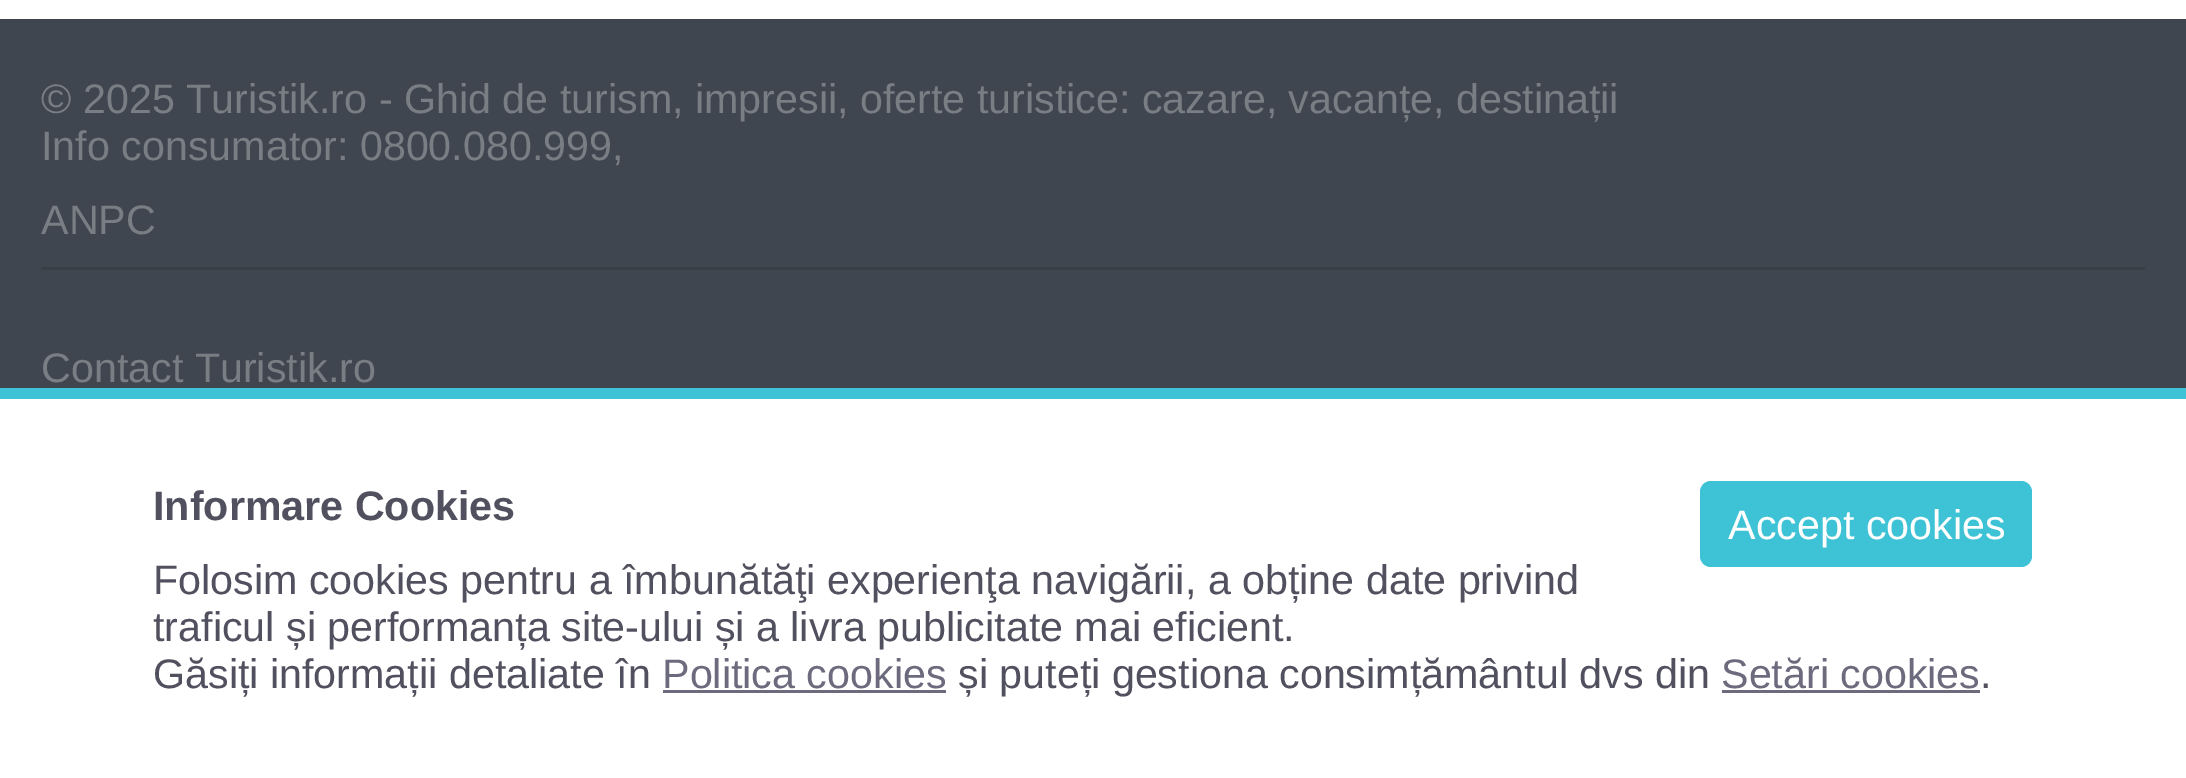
%!PS
<< /PageSize [2186 778] >> setpagedevice
/fl/fill load def
/co { dup -16 bitshift 255 div exch dup -8 bitshift 255 and 255 div exch 255 and 255 div setrgbcolor } def
/fn { [ exch dup neg 0 0 3 -1 roll 0 0 ] selectfont } def
/tx { co fn moveto show } def
/bx { co rectfill } def
/rr { 5 dict begin { /r /h /w /y /x } { exch def } forall
  x r add y moveto x w add y 2 copy h add r arct x w add y h add x 1 index r arct
  x y h add x y r arct x y 2 copy exch w add exch r arct closepath end } def
0 778 translate 1 -1 scale
4 setmiterlimit
0 0 2186 778 16#FFFFFF bx
0 19 2186 369 16#3F464F bx
41 267 2104 3 16#393F47 bx
0 388 2186 11 16#3EC3D6 bx
1700 481 332 86 11 rr fl
663 690 283 3 16#6C6A7D bx
1722 690 258 3 16#6C6A7D bx
(© 2025 Turistik.ro - Ghid de turism, impresii, oferte turistice: cazare, vacanțe, destinații) 41 113 /LiberationSans-Regular 41.25 16#797E84 tx
(Info consumator: 0800.080.999,) 41 160 /LiberationSans-Regular 41.25 16#797E84 tx
(ANPC) 41 234 /LiberationSans-Regular 41.25 16#797E84 tx
(Contact Turistik.ro) 41 382 /LiberationSans-Regular 41.25 16#797E84 tx
(Informare Cookies) 153 520 /LiberationSans-Bold 41.25 16#51505F tx
(Accept cookies) 1728 539 /LiberationSans-Regular 41.25 16#FFFFFF tx
(Folosim cookies pentru a îmbunătăţi experienţa navigării, a obține date privind) 153 594 /LiberationSans-Regular 41.25 16#51505F tx
(traficul și performanța site-ului și a livra publicitate mai eficient.) 153 641 /LiberationSans-Regular 41.25 16#51505F tx
(Găsiți informații detaliate în) 153 688 /LiberationSans-Regular 41.25 16#51505F tx
(Politica cookies) 662 688 /LiberationSans-Regular 41.25 16#6C6A7D tx
(și puteți gestiona consimțământul dvs din) 958 688 /LiberationSans-Regular 41.25 16#51505F tx
(Setări cookies) 1721 688 /LiberationSans-Regular 41.25 16#6C6A7D tx
(.) 1980 688 /LiberationSans-Regular 41.25 16#51505F tx
showpage
